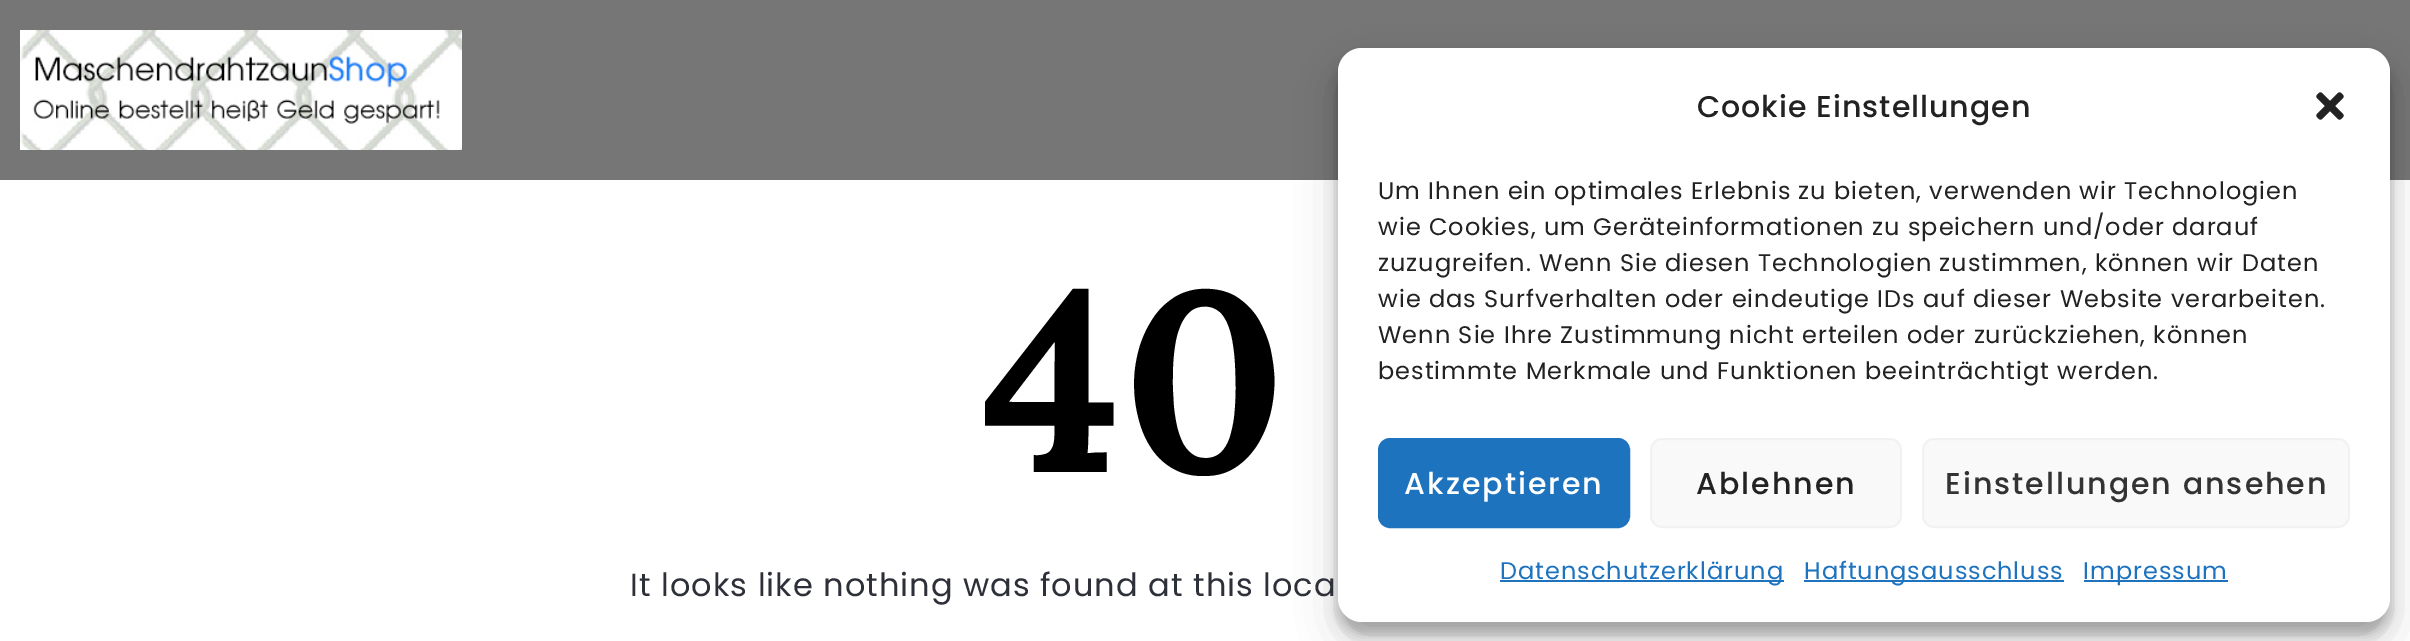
%!PS
<< /PageSize [2410 641] /PageUsesTransparency true >> setpagedevice
/mt/moveto load def
/fl/fill load def
/st/stroke load def
/gs/gsave load def
/gr/grestore load def
/lw/setlinewidth load def
/co { dup -16 bitshift 255 div exch dup -8 bitshift 255 and 255 div exch 255 and 255 div setrgbcolor } def
/fn { [ exch dup neg 0 0 3 -1 roll 0 0 ] selectfont } def
/bx { co rectfill } def
/al { dup .setfillconstantalpha .setstrokeconstantalpha } def
/rr { 5 dict begin { /r /h /w /y /x } { exch def } forall
  x r add y moveto x w add y 2 copy h add r arct x w add y h add x 1 index r arct
  x y h add x y r arct x y 2 copy exch w add exch r arct closepath end } def
/sh { 12 dict begin { /a /b /q /h /w /y /x } { exch def } forall gsave /was 0 def
  9 -2 -9 { dup b mul 4 div /e exch def 1 sub .425 mul 2.718 exch exp 1 add a .99 .min exch div /now exch def
    1 1 now sub 1 was sub div sub al /was now def
    w h .min e 2 mul add 0 gt { x e sub y e sub w e 2 mul add h e 2 mul add
      q e add b .6 mul add w h .min 2 div e add .min 0 .max rr fill } if } for grestore end } def
/im { 5 dict begin { /h /w /y /x /name } { exch def } forall
  gsave x y translate w h scale
  w h 8 [w 0 0 h 0 0] name (r) file false 3 colorimage grestore end } def
0 .pushpdf14devicefilter
0 641 translate 1 -1 scale
4 setmiterlimit
0 0 2410 641 16#FFFFFF bx
0 0 2410 180 16#767676 bx
(media/1.raw) 20 30 442 120 im
16#000000 co
1338 60 1052 574 24 6 .23 sh
1338 68 1052 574 24 20 .19 sh
16#FFFFFF co
1338 48 1052 574 24 rr fl
(media/2.raw) 2316 92 28 28 im
16#1E73BE co
1379 439 250 88 11 rr gs fl gr
2 lw
st
16#F9F9F9 co
1651 439 250 88 11 rr gs fl gr
16#F2F2F2 co
st
16#F9F9F9 co
1923 439 426 88 11 rr gs fl gr
16#F2F2F2 co
st
1500 580 284 2 16#1E73BE bx
1804 580 260 2 16#1E73BE bx
2084 580 144 2 16#1E73BE bx
/Lora-Bold 256 fn
16#000000 co
982 472 mt 1 0 (40) ashow
/Poppins-Regular 32 fn
16#2E3039 co
630 596 mt 1 0 (It looks like nothing was found at this loca) ashow
/Poppins-Medium 30 fn
16#222222 co
1697 117 mt 1 0 (Cookie Einstellungen) ashow
/Poppins-Regular 24 fn
1378 199 mt 1 0 (Um Ihnen ein optimales Erlebnis zu bieten, verwenden wir Technologien) ashow
1378 235 mt 1 0 (wie Cookies, um Geräteinformationen zu speichern und/oder darauf) ashow
1378 271 mt 1 0 (zuzugreifen. Wenn Sie diesen Technologien zustimmen, können wir Daten) ashow
1378 307 mt 1 0 (wie das Surfverhalten oder eindeutige IDs auf dieser Website verarbeiten.) ashow
1378 343 mt 1 0 (Wenn Sie Ihre Zustimmung nicht erteilen oder zurückziehen, können) ashow
1378 379 mt 1 0 (bestimmte Merkmale und Funktionen beeinträchtigt werden.) ashow
/Poppins-Medium 30 fn
16#FFFFFF co
1404 494 mt 2 0 (Akzeptieren) ashow
16#222222 co
1696 494 mt 2 0 (Ablehnen) ashow
16#333333 co
1945 494 mt 2 0 (Einstellungen ansehen) ashow
/Poppins-Regular 24 fn
16#1E73BE co
1500 579 mt 1 0 (Datenschutzerklärung) ashow
1804 579 mt 1 0 (Haftungsausschluss) ashow
2083 579 mt 1 0 (Impressum) ashow
.poppdf14devicefilter showpage
